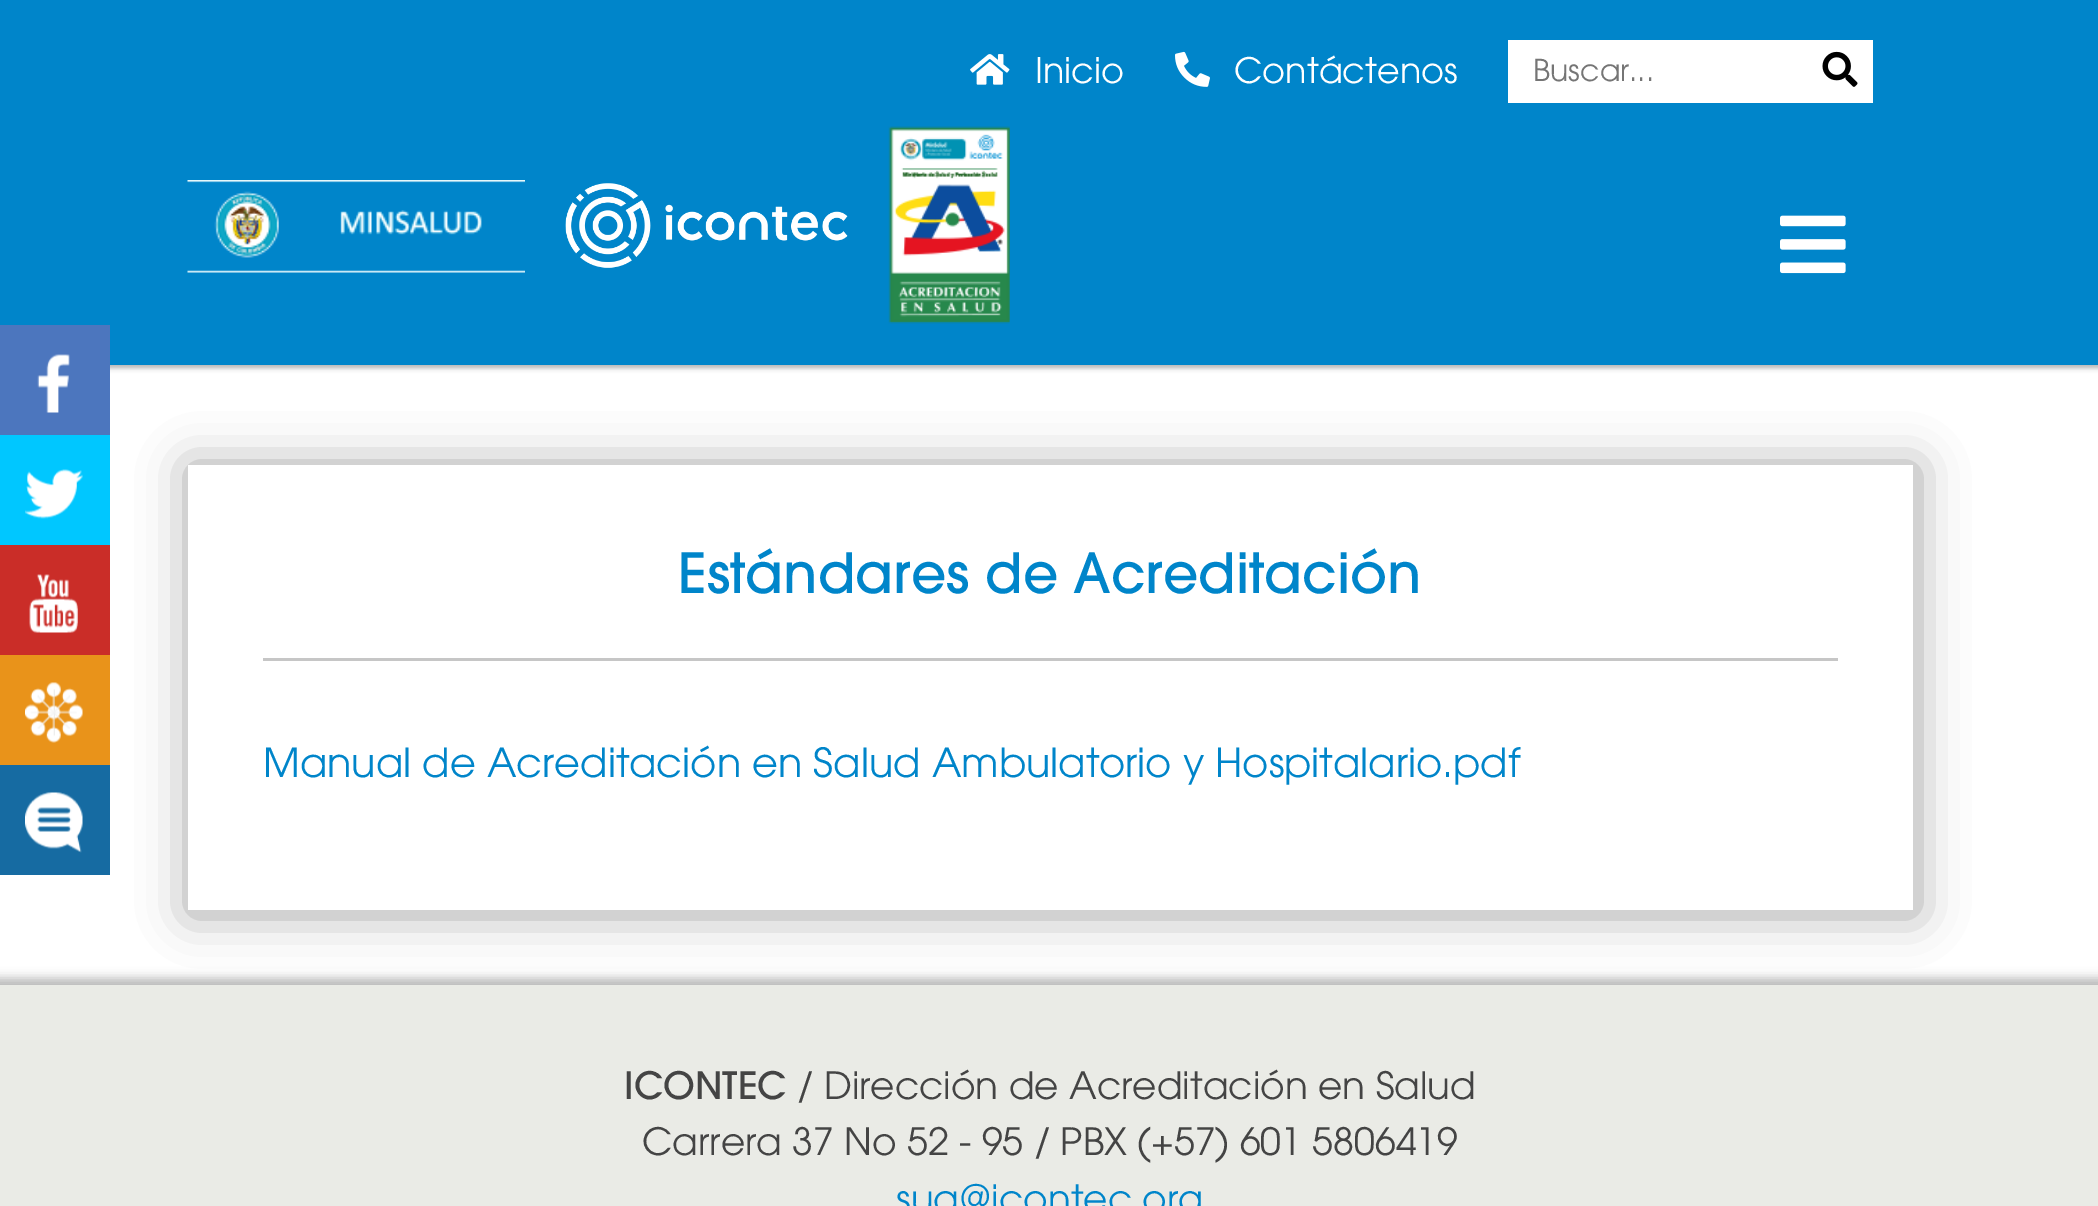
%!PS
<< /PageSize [2098 1206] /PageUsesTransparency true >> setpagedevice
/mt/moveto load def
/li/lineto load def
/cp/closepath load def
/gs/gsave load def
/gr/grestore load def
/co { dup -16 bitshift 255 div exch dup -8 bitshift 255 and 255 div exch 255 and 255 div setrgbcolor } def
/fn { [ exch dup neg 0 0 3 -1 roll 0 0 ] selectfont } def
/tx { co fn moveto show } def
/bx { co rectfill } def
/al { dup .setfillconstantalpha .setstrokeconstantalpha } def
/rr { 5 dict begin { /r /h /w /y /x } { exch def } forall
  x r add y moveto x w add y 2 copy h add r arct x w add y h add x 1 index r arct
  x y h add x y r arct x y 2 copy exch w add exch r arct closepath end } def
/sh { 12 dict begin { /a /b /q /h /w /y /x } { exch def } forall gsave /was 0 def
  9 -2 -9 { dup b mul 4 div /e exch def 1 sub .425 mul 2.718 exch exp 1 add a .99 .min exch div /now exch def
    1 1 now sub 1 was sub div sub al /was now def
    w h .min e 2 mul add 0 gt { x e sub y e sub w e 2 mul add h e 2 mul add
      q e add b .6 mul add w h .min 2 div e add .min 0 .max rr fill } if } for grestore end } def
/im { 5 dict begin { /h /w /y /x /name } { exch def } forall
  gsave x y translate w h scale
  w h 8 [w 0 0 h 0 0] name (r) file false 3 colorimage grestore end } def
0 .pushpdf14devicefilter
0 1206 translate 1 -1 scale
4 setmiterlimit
0 0 2098 1206 16#FFFFFF bx
16#000000 co
-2 -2 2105 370 0 2.5 .3 sh
0 0 2098 365 16#0085CA bx
(media/1.raw) 970 54 40 31 im
(media/2.raw) 1175 51 35 36 im
1508 40 365 63 16#FFFFFF bx
(media/3.raw) 1822 51 36 36 im
(media/4.raw) 187 180 338 93 im
(media/5.raw) 565 183 283 85 im
(media/6.raw) 888 126 122 198 im
(media/7.raw) 1780 215 66 59 im
0 325 110 110 16#4C76BE bx
(media/8.raw) 37 354 33 59 im
0 435 110 110 16#00C7FF bx
(media/9.raw) 25 469 58 50 im
0 545 110 110 16#CA2D28 bx
(media/10.raw) 29 574 49 59 im
0 655 110 110 16#E9931A bx
(media/11.raw) 25 682 58 61 im
0 765 110 110 16#166BA2 bx
(media/12.raw) 25 792 58 61 im
16#AAAAAA co
-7 978 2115 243 0 5 .8 sh
0 985 2098 221 16#EAEBE6 bx
gs
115 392 mt 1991 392 li 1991 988 li 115 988 li cp 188 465 mt 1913 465 li 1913 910 li 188 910 li cp eoclip newpath
16#A3A3A3 co
188 465 1730 450 0 24 1 sh
gr
263 658 1575 3 16#C6C6C6 bx
(Inicio) 1035 83 /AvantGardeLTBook-Regular 35 16#FFFFFF tx
(Contáctenos) 1234 83 /AvantGardeLTBook-Regular 35 16#FFFFFF tx
(Buscar...) 1533 81 /AvantGardeLTBook-Regular 30 16#757575 tx
(Estándares de Acreditación) 678 593 /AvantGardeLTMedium-Medium 55 16#0085CA tx
(Manual de Acreditación en Salud Ambulatorio y Hospitalario.pdf) 263 777 /AvantGardeLTBook-Regular 40 16#0085CA tx
(ICONTEC) 624 1099 /AvantGardeLTMedium-Medium 37.5 16#444444 tx
(/ Dirección de Acreditación en Salud) 797 1099 /AvantGardeLTBook-Regular 37.5 16#444444 tx
(Carrera 37 No 52 - 95 / PBX \(+57\) 601 5806419) 642 1155 /AvantGardeLTBook-Regular 37.5 16#444444 tx
(sua@icontec.org) 896 1212 /AvantGardeLTBook-Regular 37.5 16#0085CA tx
.poppdf14devicefilter showpage
